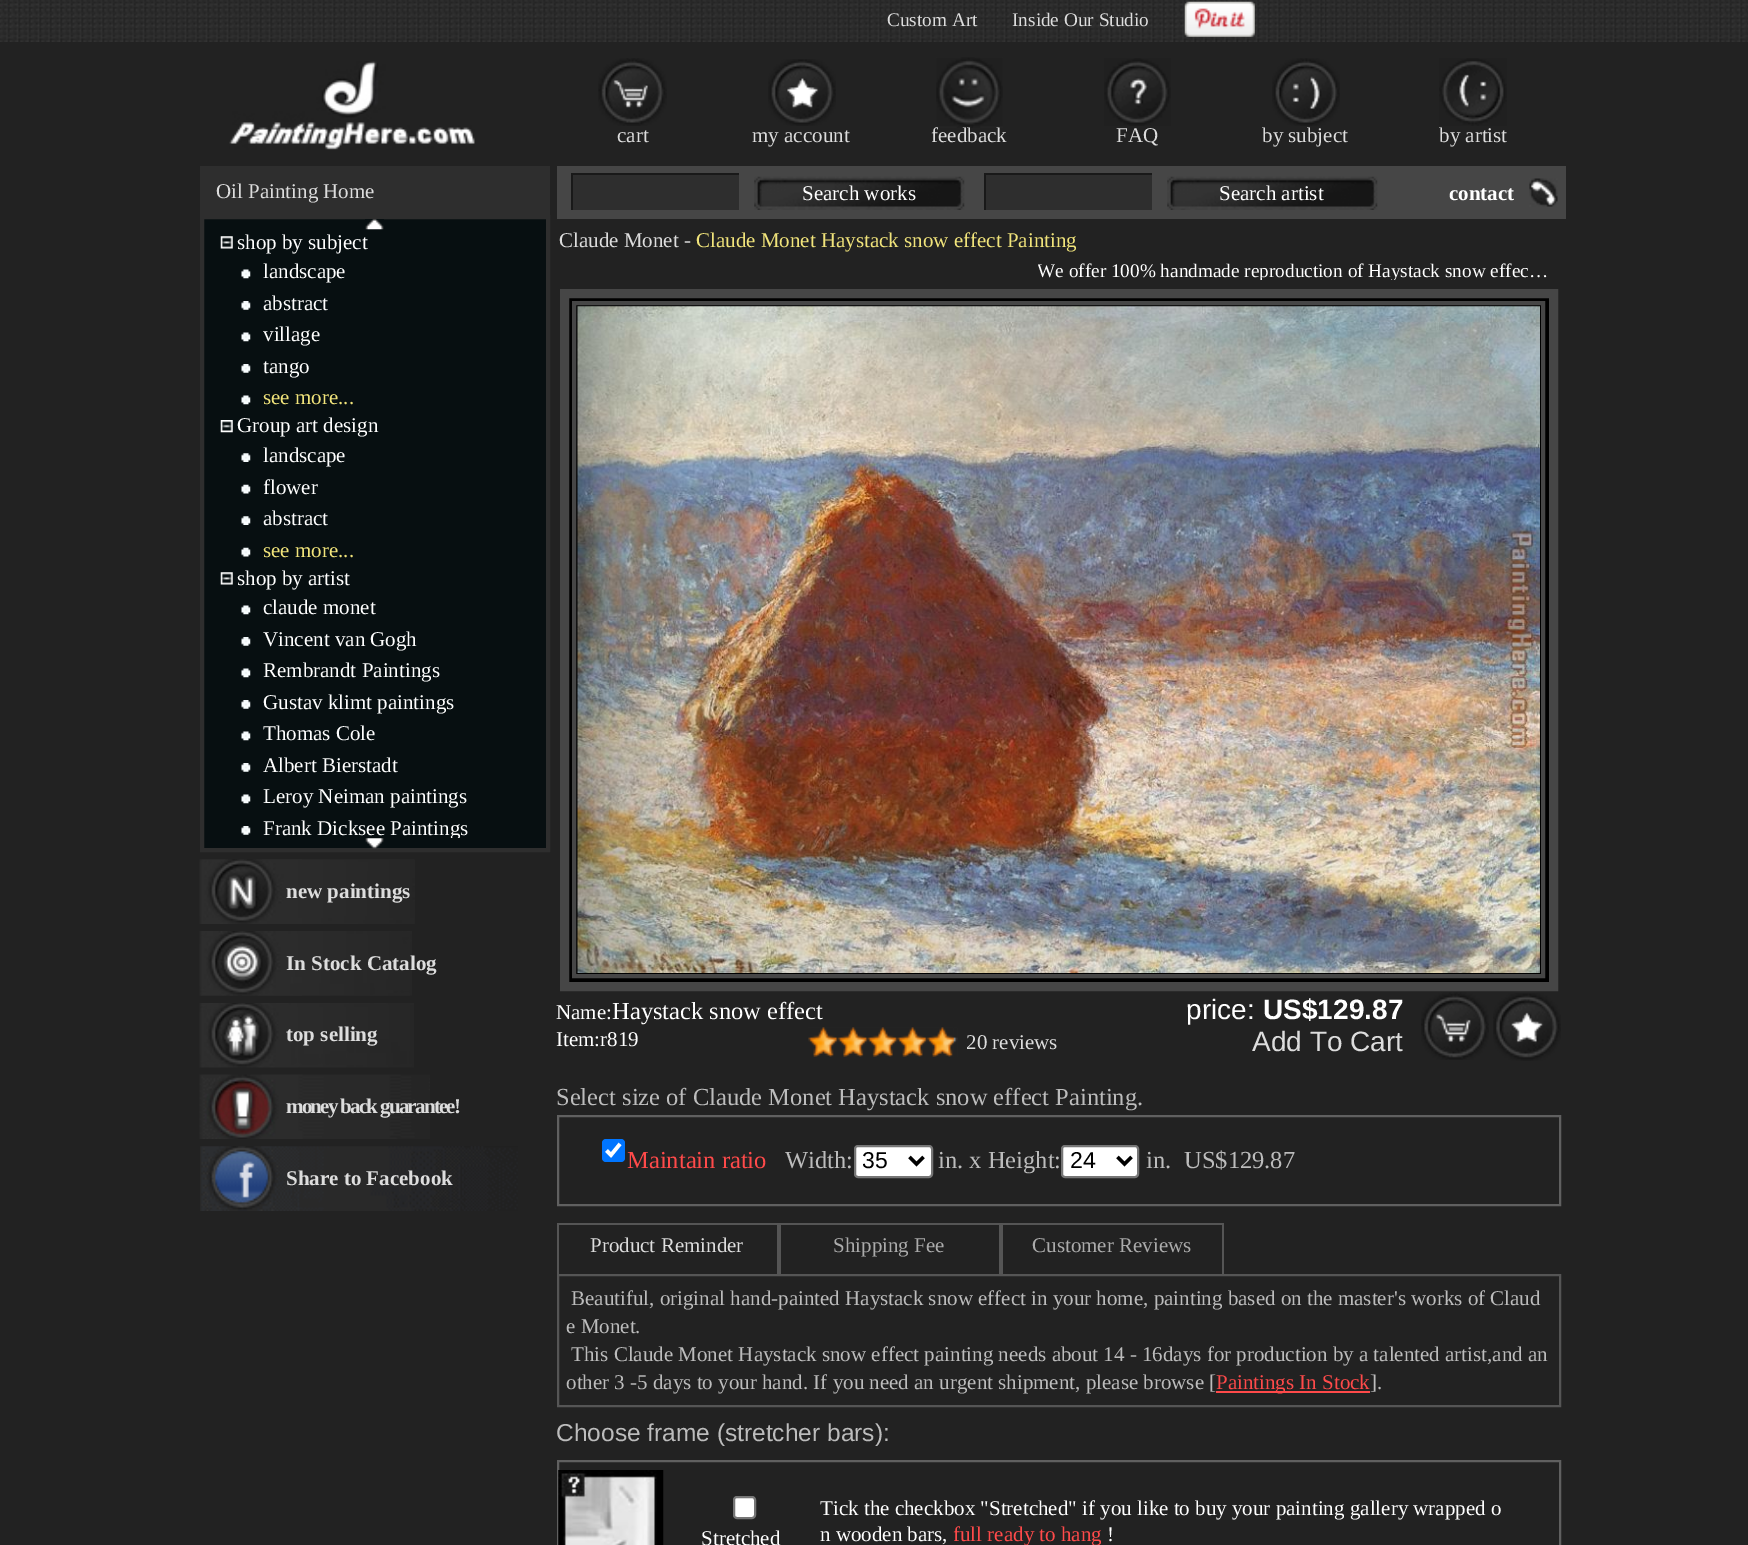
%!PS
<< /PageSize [1748 1545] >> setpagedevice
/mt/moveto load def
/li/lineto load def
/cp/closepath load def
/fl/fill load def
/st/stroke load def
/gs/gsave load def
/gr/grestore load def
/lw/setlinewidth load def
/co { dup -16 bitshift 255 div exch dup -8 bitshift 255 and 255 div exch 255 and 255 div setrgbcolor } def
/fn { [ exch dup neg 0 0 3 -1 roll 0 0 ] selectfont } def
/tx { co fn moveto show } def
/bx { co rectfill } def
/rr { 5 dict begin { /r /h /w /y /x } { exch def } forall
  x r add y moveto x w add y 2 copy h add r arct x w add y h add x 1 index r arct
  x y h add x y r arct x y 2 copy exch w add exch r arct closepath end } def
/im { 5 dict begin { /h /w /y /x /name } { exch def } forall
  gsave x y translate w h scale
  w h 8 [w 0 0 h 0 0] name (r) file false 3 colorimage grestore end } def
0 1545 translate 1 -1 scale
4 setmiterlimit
0 0 1748 1545 16#222222 bx
(media/1.raw) 0 0 1748 42 im
(media/2.raw) 1184 1 71 36 im
(media/3.raw) 1325 0 218 42 im
(media/4.raw) 229 61 246 89 im
(media/5.raw) 598 58 69 68 im
(media/6.raw) 768 59 68 67 im
(media/7.raw) 936 57 67 71 im
(media/8.raw) 1104 58 67 68 im
(media/9.raw) 1272 58 68 68 im
(media/10.raw) 1439 58 68 68 im
200 166 350 49 16#2E2E2E bx
16#070F11 co
202 217 mt 548 217 li 548 850 li 202 850 li cp gs fl gr
16#2E2E2E co
4 lw
st
(media/11.raw) 365 219 19 11 im
(media/12.raw) 220 236 13 13 im
(media/13.raw) 241 269 10 10 im
(media/14.raw) 241 301 10 9 im
(media/13.raw) 241 332 10 10 im
(media/14.raw) 241 364 10 9 im
(media/13.raw) 241 395 10 10 im
(media/15.raw) 220 420 13 13 im
(media/16.raw) 241 453 10 9 im
(media/17.raw) 241 484 10 10 im
(media/16.raw) 241 516 10 9 im
(media/17.raw) 241 547 10 10 im
(media/12.raw) 220 572 13 13 im
(media/13.raw) 241 605 10 10 im
(media/14.raw) 241 637 10 9 im
(media/13.raw) 241 668 10 10 im
(media/14.raw) 241 700 10 9 im
(media/13.raw) 241 731 10 10 im
(media/14.raw) 241 763 10 9 im
(media/13.raw) 241 794 10 10 im
(media/14.raw) 241 826 10 9 im
(media/18.raw) 365 838 19 11 im
(media/19.raw) 199 859 216 65 im
(media/20.raw) 199 931 213 65 im
(media/21.raw) 199 1003 215 65 im
(media/22.raw) 199 1074 231 65 im
(media/23.raw) 200 1146 318 65 im
557 166 1009 53 16#464646 bx
573 175 166 35 16#2E2E2E bx
571 173 168 2 16#191919 bx
571 173 2 37 16#191919 bx
(media/24.raw) 754 176 211 34 im
986 175 166 35 16#2E2E2E bx
984 173 168 2 16#191919 bx
984 173 2 37 16#191919 bx
(media/25.raw) 1167 176 211 34 im
(media/26.raw) 1529 178 29 29 im
16#000000 co
564.5 293.5 mt 1553.5 293.5 li 1553.5 986.5 li 564.5 986.5 li cp gs fl gr
16#464646 co
9 lw
st
4 lw
574 303 969 673 rectstroke
(media/27.raw) 577 306 963 667 im
(media/28.raw) 808 1027 150 30 im
(media/29.raw) 808 1027 146 30 im
(media/30.raw) 1421 992 68 68 im
(media/31.raw) 1493 993 68 68 im
16#606060 co
2 lw
558 1116 1002 89 rectstroke
16#0075FF co
602 1139 23 23 4 rr fl
16#FFFFFF co
3.6 lw
606.5 1150.5 mt 611 1155 li 620 1144 li st
855 1146 77 31 3 rr gs fl gr
16#767676 co
2 lw
st
16#000000 co
3.5 lw
909.5 1157 mt 916.5 1164 li 923.5 1157 li st
16#FFFFFF co
1062 1146 76 31 3 rr gs fl gr
16#767676 co
2 lw
st
16#000000 co
3.5 lw
1117.5 1157 mt 1124.5 1164 li 1131.5 1157 li st
557 1223 666 2 16#555555 bx
777 1223 4 51 16#555555 bx
557 1223 2 51 16#555555 bx
999 1223 4 51 16#555555 bx
1222 1223 2 51 16#555555 bx
2 lw
558 1275 1002 131 rectstroke
1216 1391 154 2 16#FF4A4A bx
16#606060 co
558 1461 1002 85 rectstroke
(media/32.raw) 558 1470 106 75 im
16#FFFFFF co
734 1497 21 21 3 rr gs fl gr
16#767676 co
st
(Custom Art) 887 26 /LiberationSerif-Regular 19.25 16#DDDDDD tx
(Inside Our Studio) 1012 26 /LiberationSerif-Regular 19.25 16#DDDDDD tx
(cart) 617 142 /LiberationSerif-Regular 21 16#DDDDDD tx
(my account) 752 142 /LiberationSerif-Regular 21 16#DDDDDD tx
(feedback) 931 142 /LiberationSerif-Regular 21 16#DDDDDD tx
(FAQ) 1116 142 /LiberationSerif-Regular 21 16#DDDDDD tx
(by subject) 1262 142 /LiberationSerif-Regular 21 16#DDDDDD tx
(by artist) 1439 142 /LiberationSerif-Regular 21 16#DDDDDD tx
(Oil Painting Home) 216 198 /LiberationSerif-Regular 21 16#DDDDDD tx
(shop by subject) 237 249 /LiberationSerif-Regular 21 16#FFFFFF tx
(landscape) 263 278 /LiberationSerif-Regular 21 16#FFFFFF tx
(abstract) 263 310 /LiberationSerif-Regular 21 16#FFFFFF tx
(village) 263 341 /LiberationSerif-Regular 21 16#FFFFFF tx
(tango) 263 373 /LiberationSerif-Regular 21 16#FFFFFF tx
(see more...) 263 404 /LiberationSerif-Regular 21 16#F1E47B tx
(Group art design) 237 432 /LiberationSerif-Regular 21 16#FFFFFF tx
(landscape) 263 462 /LiberationSerif-Regular 21 16#FFFFFF tx
(flower) 263 494 /LiberationSerif-Regular 21 16#FFFFFF tx
(abstract) 263 525 /LiberationSerif-Regular 21 16#FFFFFF tx
(see more...) 263 557 /LiberationSerif-Regular 21 16#F1E47B tx
(shop by artist) 237 585 /LiberationSerif-Regular 21 16#FFFFFF tx
(claude monet) 263 614 /LiberationSerif-Regular 21 16#FFFFFF tx
(Vincent van Gogh) 263 646 /LiberationSerif-Regular 21 16#FFFFFF tx
(Rembrandt Paintings) 263 677 /LiberationSerif-Regular 21 16#FFFFFF tx
(Gustav klimt paintings) 263 709 /LiberationSerif-Regular 21 16#FFFFFF tx
(Thomas Cole) 263 740 /LiberationSerif-Regular 21 16#FFFFFF tx
(Albert Bierstadt) 263 772 /LiberationSerif-Regular 21 16#FFFFFF tx
(Leroy Neiman paintings) 263 803 /LiberationSerif-Regular 21 16#FFFFFF tx
gs
221 592 316 246 rectclip
(Frank Dicksee Paintings) 263 835 /LiberationSerif-Regular 21 16#FFFFFF tx
gr
(new paintings) 286 898 /LiberationSerif-Bold 21 16#DDDDDD tx
(In Stock Catalog) 286 970 /LiberationSerif-Bold 21 16#DDDDDD tx
(top selling) 286 1041 /LiberationSerif-Bold 21 16#DDDDDD tx
286 1113 mt -1.75 0 (money back guarantee!) ashow
(Share to Facebook) 286 1185 /LiberationSerif-Bold 21 16#DDDDDD tx
(Search works) 802 200 /LiberationSerif-Regular 21 16#FFFFFF tx
(Search artist) 1219 200 /LiberationSerif-Regular 21 16#FFFFFF tx
(contact) 1449 200 /LiberationSerif-Bold 21 16#FFFFFF tx
(Claude Monet -) 559 247 /LiberationSerif-Regular 21 16#DDDDDD tx
(Claude Monet Haystack snow effect Painting) 696 247 /LiberationSerif-Regular 21 16#F1E47B tx
gs
1038 259 514 21 rectclip
(We offer 100% handmade reproduction of Haystack snow effec…) 1037 277 /LiberationSerif-Regular 19.25 16#FFFFFF tx
gr
(Name:) 556 1019 /LiberationSerif-Regular 21 16#FFFFFF tx
(Haystack snow effect) 612 1019 /LiberationSerif-Regular 24.5 16#FFFFFF tx
(Item:r819) 556 1046 /LiberationSerif-Regular 21 16#FFFFFF tx
(20 reviews) 966 1049 /LiberationSerif-Regular 21 16#DDDDDD tx
(price:) 1186 1019 /LiberationSans-Regular 28 16#FFFFFF tx
(US$129.87) 1263 1019 /LiberationSans-Bold 28 16#FFFFFF tx
(Add To Cart) 1252 1051 /LiberationSans-Regular 28 16#DDDDDD tx
(Select size of Claude Monet Haystack snow effect Painting.) 556 1105 /LiberationSerif-Regular 24.5 16#BCBCBC tx
(Maintain ratio) 627 1168 /LiberationSerif-Regular 24.5 16#FF4A4A tx
(Width:) 785 1168 /LiberationSerif-Regular 24.5 16#BCBCBC tx
(35) 862 1168 /LiberationSans-Regular 23 16#000000 tx
(in. x Height:) 938 1168 /LiberationSerif-Regular 24.5 16#BCBCBC tx
(24) 1070 1168 /LiberationSans-Regular 23 16#000000 tx
(in.) 1146 1168 /LiberationSerif-Regular 24.5 16#BCBCBC tx
(US$129.87) 1184 1168 /LiberationSerif-Regular 24.5 16#BCBCBC tx
(Product Reminder) 590 1252 /LiberationSerif-Regular 21 16#DDDDDD tx
(Shipping Fee) 833 1252 /LiberationSerif-Regular 21 16#ABABAB tx
(Customer Reviews) 1032 1252 /LiberationSerif-Regular 21 16#ABABAB tx
(Beautiful, original hand-painted Haystack snow effect in your home, painting based on the master's works of Claud) 571 1305 /LiberationSerif-Regular 21 16#BCBCBC tx
(e Monet.) 566 1333 /LiberationSerif-Regular 21 16#BCBCBC tx
(This Claude Monet Haystack snow effect painting needs about 14 - 16days for production by a talented artist,and an) 571 1361 /LiberationSerif-Regular 21 16#BCBCBC tx
(other 3 -5 days to your hand. If you need an urgent shipment, please browse [) 566 1389 /LiberationSerif-Regular 21 16#BCBCBC tx
(Paintings In Stock) 1216 1389 /LiberationSerif-Regular 21 16#FF4A4A tx
(].) 1370 1389 /LiberationSerif-Regular 21 16#BCBCBC tx
(Choose frame \(stretcher bars\):) 556 1441 /LiberationSans-Regular 24.5 16#BCBCBC tx
(Stretched) 701 1545 /LiberationSerif-Regular 21 16#FFFFFF tx
(Tick the checkbox "Stretched" if you like to buy your painting gallery wrapped o) 820 1515 /LiberationSerif-Regular 21 16#FFFFFF tx
(n wooden bars,) 820 1541 /LiberationSerif-Regular 21 16#FFFFFF tx
(full ready to hang) 953 1541 /LiberationSerif-Regular 21 16#FF4A4A tx
(!) 1107 1541 /LiberationSerif-Regular 21 16#FFFFFF tx
showpage
